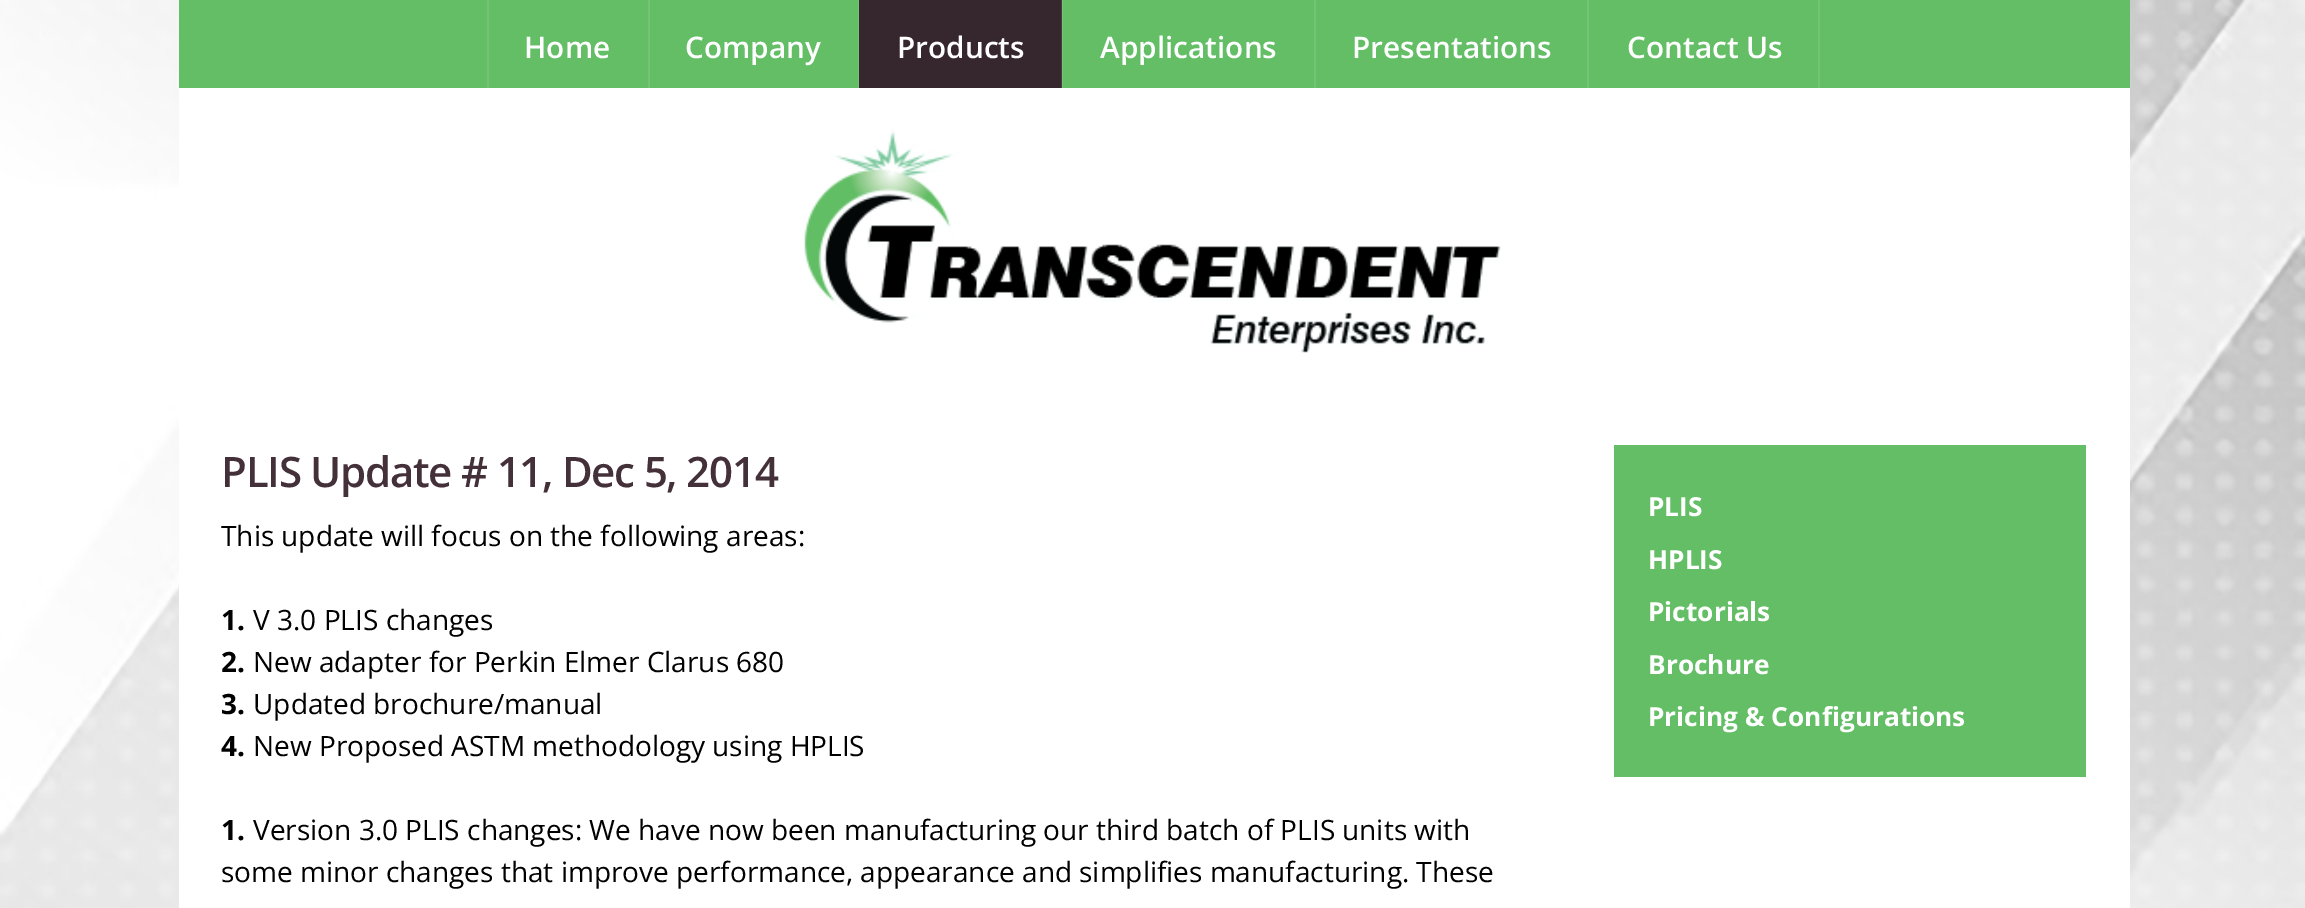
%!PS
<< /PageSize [2305 908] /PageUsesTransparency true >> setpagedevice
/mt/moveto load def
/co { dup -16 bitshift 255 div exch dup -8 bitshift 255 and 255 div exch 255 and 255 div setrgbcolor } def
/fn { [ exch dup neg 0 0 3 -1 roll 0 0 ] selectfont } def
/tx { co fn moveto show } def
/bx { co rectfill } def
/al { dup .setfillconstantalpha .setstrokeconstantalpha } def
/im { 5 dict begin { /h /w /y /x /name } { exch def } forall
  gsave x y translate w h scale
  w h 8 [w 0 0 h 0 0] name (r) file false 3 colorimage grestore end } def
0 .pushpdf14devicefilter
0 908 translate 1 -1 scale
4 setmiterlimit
0 0 2305 908 16#FFFFFF bx
(media/1.raw) 0 0 2305 908 im
179 0 1951 88 16#63BE66 bx
487 0 2 88 16#73C575 bx
648 0 2 88 16#73C575 bx
858 0 1 88 16#73C575 bx
859 0 203 88 16#36262D bx
0.1 al
1061 0 2 88 16#FFFFFF bx
1 al
1314 0 2 88 16#73C575 bx
1587 0 2 88 16#73C575 bx
1818 0 2 88 16#73C575 bx
179 88 1951 820 16#FFFFFF bx
(media/2.raw) 804 128 697 225 im
1614 445 472 332 16#63BE66 bx
(Home) 524 58 /OpenSans-SemiBold 29.75 16#FFFFFF tx
(Company) 685 58 /OpenSans-SemiBold 29.75 16#FFFFFF tx
(Products) 897 58 /OpenSans-SemiBold 29.75 16#FFFFFF tx
(Applications) 1100 58 /OpenSans-SemiBold 29.75 16#FFFFFF tx
(Presentations) 1352 58 /OpenSans-SemiBold 29.75 16#FFFFFF tx
(Contact Us) 1627 58 /OpenSans-SemiBold 29.75 16#FFFFFF tx
/OpenSans-SemiBold 42 fn
16#443039 co
221 487 mt -1.25 0 (PLIS Update # 11, Dec 5, 2014) ashow
(This update will focus on the following areas:) 221 546 /OpenSans-Regular 28 16#000000 tx
(1.) 221 630 /OpenSans-Bold 28 16#000000 tx
(V 3.0 PLIS changes) 253 630 /OpenSans-Regular 28 16#000000 tx
(2.) 221 672 /OpenSans-Bold 28 16#000000 tx
(New adapter for Perkin Elmer Clarus 680) 253 672 /OpenSans-Regular 28 16#000000 tx
(3.) 221 714 /OpenSans-Bold 28 16#000000 tx
(Updated brochure/manual) 253 714 /OpenSans-Regular 28 16#000000 tx
(4.) 221 756 /OpenSans-Bold 28 16#000000 tx
(New Proposed ASTM methodology using HPLIS) 253 756 /OpenSans-Regular 28 16#000000 tx
(1.) 221 840 /OpenSans-Bold 28 16#000000 tx
(Version 3.0 PLIS changes: We have now been manufacturing our third batch of PLIS units with) 253 840 /OpenSans-Regular 28 16#000000 tx
(some minor changes that improve performance, appearance and simplifies manufacturing. These) 221 882 /OpenSans-Regular 28 16#000000 tx
(PLIS) 1648 516 /OpenSans-Bold 26.25 16#FFFFFF tx
(HPLIS) 1648 569 /OpenSans-Bold 26.25 16#FFFFFF tx
(Pictorials) 1648 621 /OpenSans-Bold 26.25 16#FFFFFF tx
(Brochure) 1648 674 /OpenSans-Bold 26.25 16#FFFFFF tx
(Pricing & Configurations) 1648 726 /OpenSans-Bold 26.25 16#FFFFFF tx
.poppdf14devicefilter showpage
